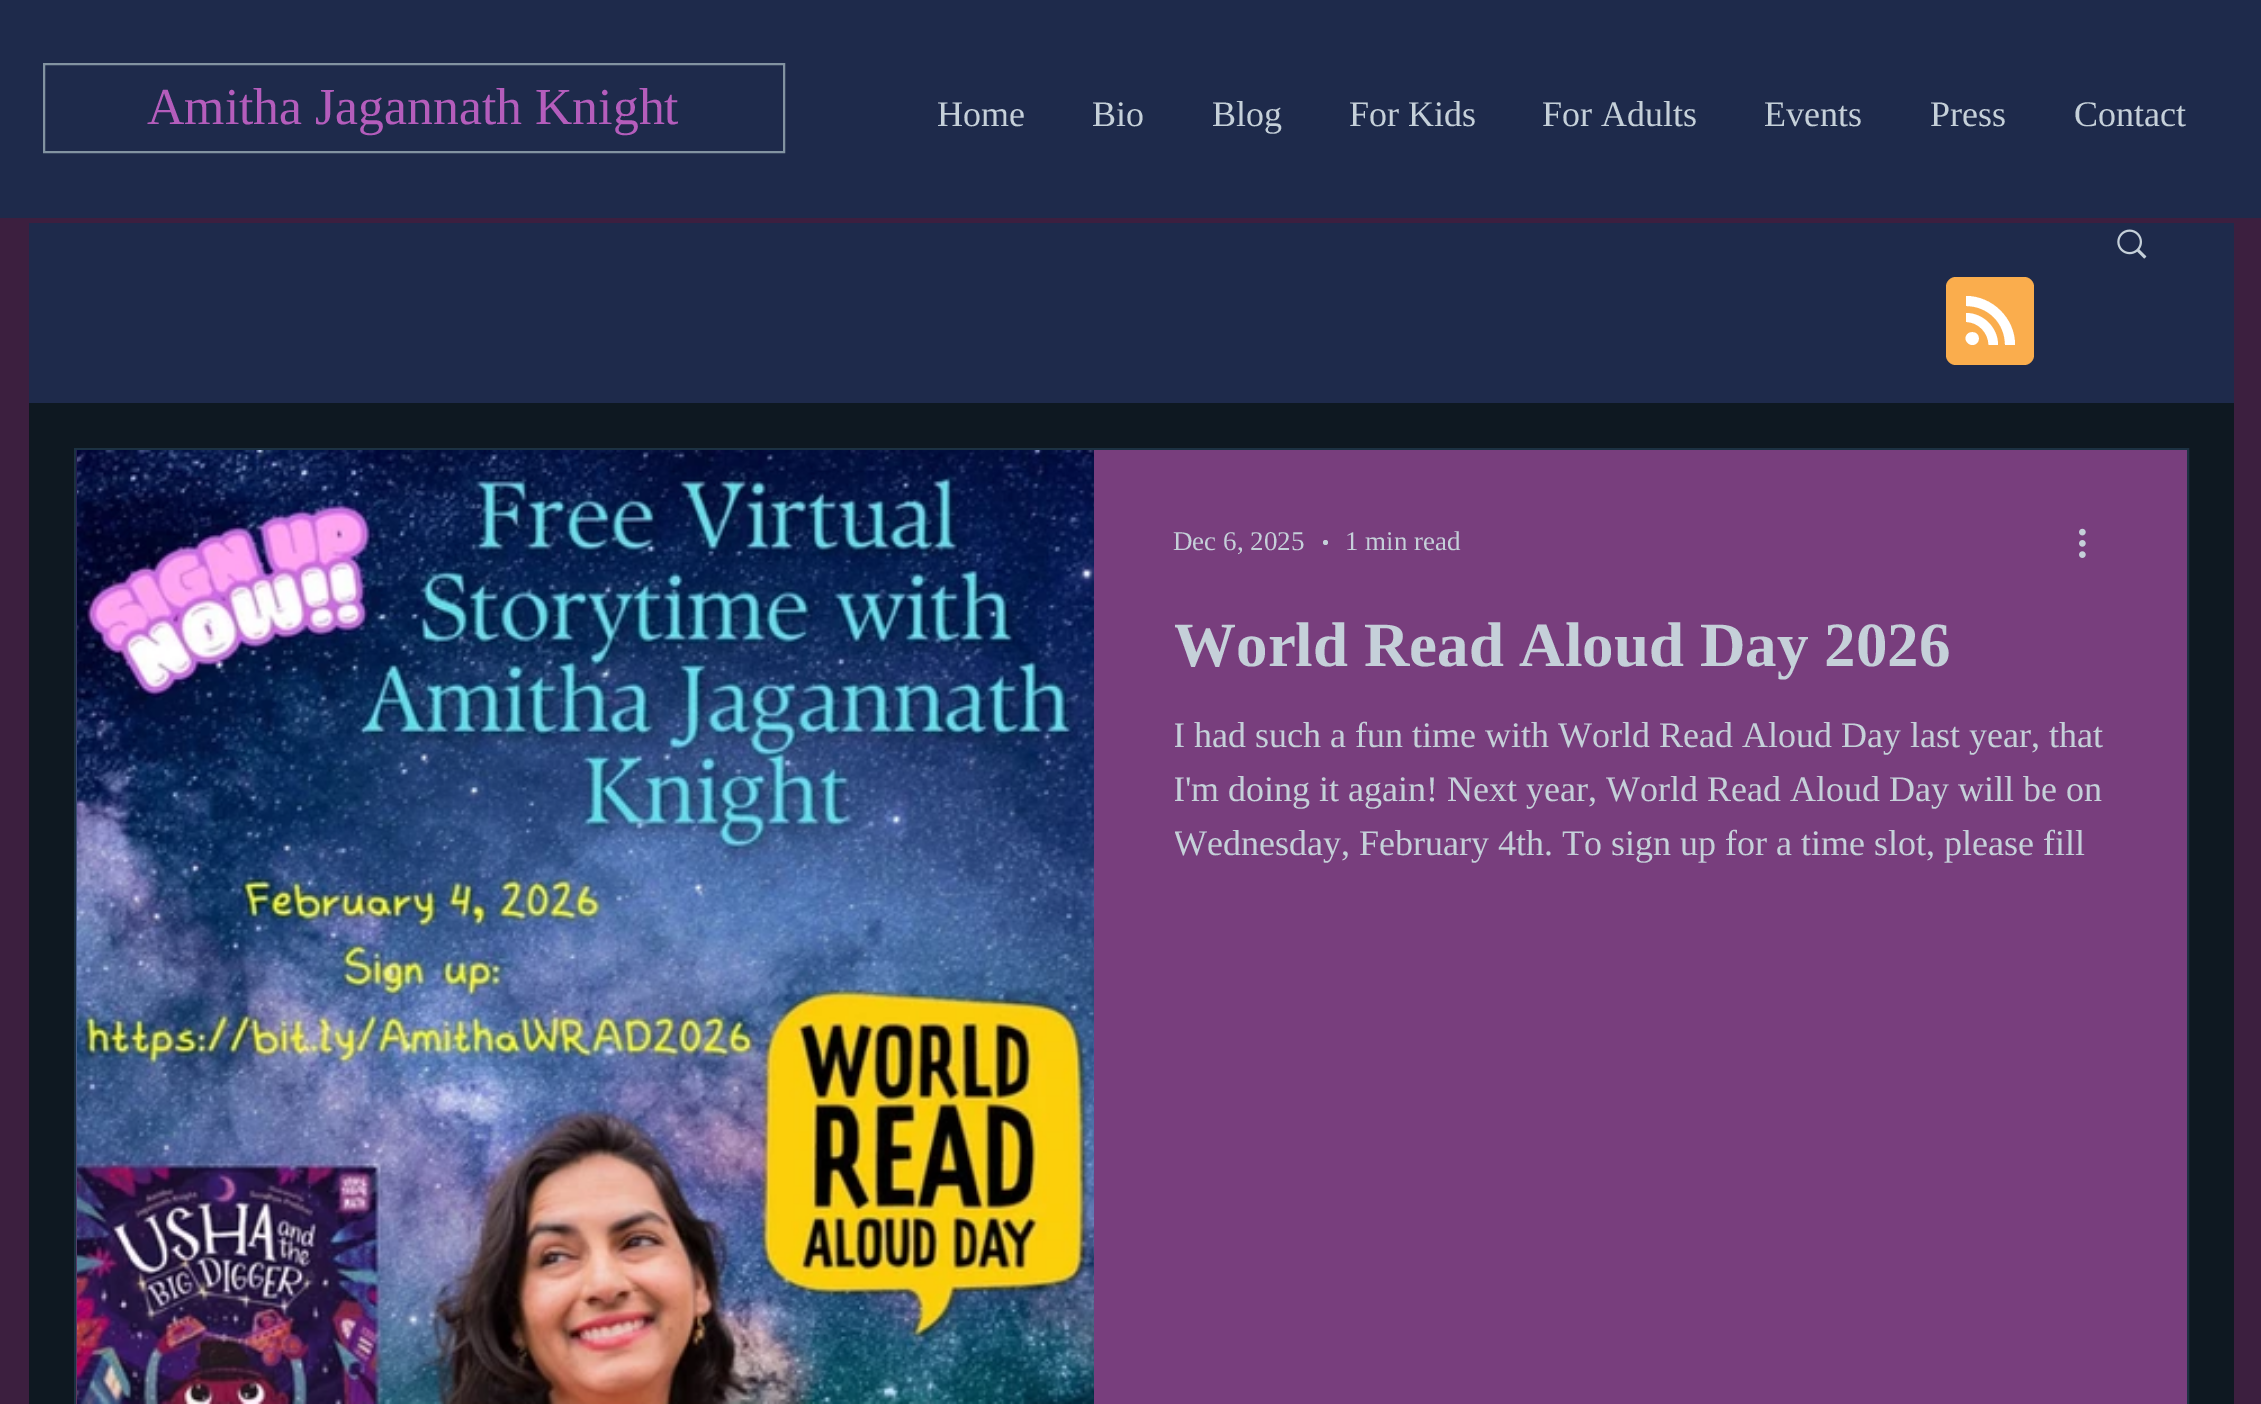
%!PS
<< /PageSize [2261 1404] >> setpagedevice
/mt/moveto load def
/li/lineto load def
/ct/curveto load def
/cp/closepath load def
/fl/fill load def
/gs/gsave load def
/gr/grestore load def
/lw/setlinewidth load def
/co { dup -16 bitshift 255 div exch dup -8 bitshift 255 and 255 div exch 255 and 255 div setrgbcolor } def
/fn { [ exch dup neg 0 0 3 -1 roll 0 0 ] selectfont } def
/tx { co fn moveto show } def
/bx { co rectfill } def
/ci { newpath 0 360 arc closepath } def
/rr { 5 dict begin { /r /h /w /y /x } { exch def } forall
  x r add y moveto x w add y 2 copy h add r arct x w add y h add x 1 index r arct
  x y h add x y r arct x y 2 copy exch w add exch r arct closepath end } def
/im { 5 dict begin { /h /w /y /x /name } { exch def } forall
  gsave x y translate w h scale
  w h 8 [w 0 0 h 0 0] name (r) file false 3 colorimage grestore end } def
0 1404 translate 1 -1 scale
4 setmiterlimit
0 0 2261 1404 16#3C1F3F bx
0 0 2261 218 16#1E2A4B bx
16#8293A1 co
2 lw
44 64 740 88 rectstroke
29 223 2205 180 16#1E2A4B bx
16#FAAD4D co
1946 277 88 88 10 rr fl
16#FFFFFF co
1966 296 mt 1966 306 li 1988 306 2005 323 2005 345 ct 2015 345 li 2015 318 1992 296 1966 296 ct cp eofill
1966 313 mt 1966 322 li 1978 322 1988.5 332.5 1988.5 345 ct 1998 345 li 1998 327.5 1983 313 1966 313 ct cp 1977 334 mt 1979.5 336.5 1979.5 340.5 1977 343 ct 1971 349 1961.5 340 1967.5 334 ct 1970 331.5 1974.5 331.5 1977 334 ct cp eofill
29 403 2205 1001 16#0E1821 bx
(media/1.raw) 2117 229 30 30 im
16#1C3142 co
75 449 2113 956 rectstroke
(media/2.raw) 76 450 1 954 im
(media/3.raw) 77 450 1017 954 im
1094 450 1093 954 16#783E7D bx
16#C5D0D9 co
1325.5 542.5 2.5 ci fl
(media/4.raw) 2079 528 7 30 im
(Amitha Jagannath Knight) 147 124 /LiberationSerif-Regular 51.75 16#B45DBC tx
(Home) 937 126 /LiberationSerif-Regular 36 16#C5D0D9 tx
(Bio) 1092 126 /LiberationSerif-Regular 36 16#C5D0D9 tx
(Blog) 1212 126 /LiberationSerif-Regular 36 16#C5D0D9 tx
(For Kids) 1349 126 /LiberationSerif-Regular 36 16#C5D0D9 tx
(For Adults) 1542 126 /LiberationSerif-Regular 36 16#C5D0D9 tx
(Events) 1764 126 /LiberationSerif-Regular 36 16#C5D0D9 tx
(Press) 1930 126 /LiberationSerif-Regular 36 16#C5D0D9 tx
(Contact) 2074 126 /LiberationSerif-Regular 36 16#C5D0D9 tx
(Dec 6, 2025) 1173 550 /LiberationSerif-Regular 27 16#C5D0D9 tx
(1 min read) 1345 550 /LiberationSerif-Regular 27 16#C5D0D9 tx
gs
1175 610 931 72 rectclip
(World Read Aloud Day 2026) 1173 666 /LiberationSerif-Bold 63 16#C5D0D9 tx
gr
gs
1175 709 931 162 rectclip
(I had such a fun time with World Read Aloud Day last year, that) 1173 747 /LiberationSerif-Regular 36 16#C5D0D9 tx
(I'm doing it again! Next year, World Read Aloud Day will be on) 1173 801 /LiberationSerif-Regular 36 16#C5D0D9 tx
(Wednesday, February 4th. To sign up for a time slot, please fill) 1173 855 /LiberationSerif-Regular 36 16#C5D0D9 tx
gr
showpage
